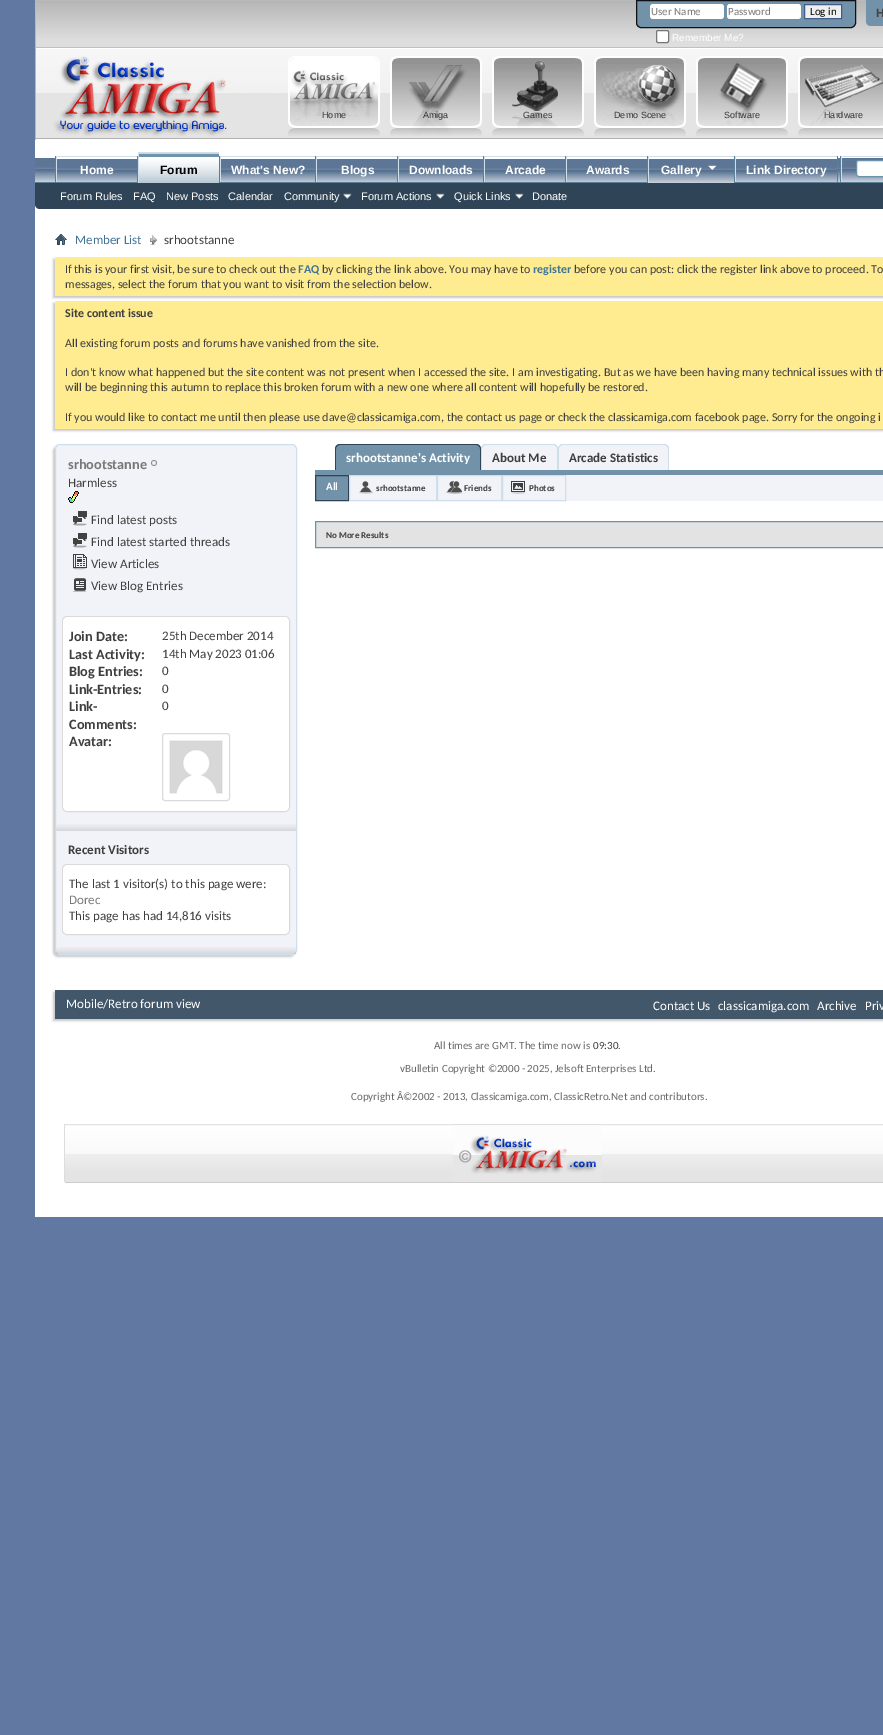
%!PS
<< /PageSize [883 1735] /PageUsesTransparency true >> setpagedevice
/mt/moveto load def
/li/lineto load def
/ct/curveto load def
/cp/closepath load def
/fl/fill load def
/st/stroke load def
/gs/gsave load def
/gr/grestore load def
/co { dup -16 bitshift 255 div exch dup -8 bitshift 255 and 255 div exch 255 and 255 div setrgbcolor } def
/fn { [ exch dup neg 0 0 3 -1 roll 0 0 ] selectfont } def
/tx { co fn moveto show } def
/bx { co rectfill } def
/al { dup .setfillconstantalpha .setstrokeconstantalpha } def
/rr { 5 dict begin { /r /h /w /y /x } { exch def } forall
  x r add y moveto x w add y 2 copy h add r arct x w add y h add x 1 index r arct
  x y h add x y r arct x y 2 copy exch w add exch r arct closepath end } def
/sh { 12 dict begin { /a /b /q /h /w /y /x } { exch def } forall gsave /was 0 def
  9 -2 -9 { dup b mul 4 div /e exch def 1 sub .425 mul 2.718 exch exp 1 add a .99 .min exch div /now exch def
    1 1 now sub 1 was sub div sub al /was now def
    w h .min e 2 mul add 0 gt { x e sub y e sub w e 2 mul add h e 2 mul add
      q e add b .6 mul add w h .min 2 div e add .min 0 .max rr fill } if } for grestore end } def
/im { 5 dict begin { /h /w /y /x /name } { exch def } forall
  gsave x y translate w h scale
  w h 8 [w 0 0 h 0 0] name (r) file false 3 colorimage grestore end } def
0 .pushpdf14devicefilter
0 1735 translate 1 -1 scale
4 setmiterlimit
0 0 883 1735 16#6178A2 bx
35 139 848 1078 16#FFFFFF bx
(media/1.raw) 35 0 848 139 im
(media/2.raw) 35 10 192 130 im
16#7192A8 co
636.5 .5 mt 855.5 .5 li 855.5 23 li 855.5 25.5 853.5 27.5 851 27.5 ct 641 27.5 li 638.5 27.5 636.5 25.5 636.5 23 ct cp gs fl gr
16#0F1013 co
st
16#FFFFFF co
650 4 74 15 3 rr fl
727 4 74 15 3 rr fl
16#EFEFEF co
804.5 4.5 mt 841.5 4.5 li 841.5 18.5 li 804.5 18.5 li cp gs fl gr
16#415D8D co
st
16#FFFFFF co
656.5 30.5 12 12 1.5 rr gs fl gr
16#767676 co
st
16#7192A8 co
866 0 mt 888 0 li 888 21 li 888 24 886 26 883 26 ct 871 26 li 868 26 866 24 866 21 ct cp fl
(media/3.raw) 288 56 92 80 im
(media/4.raw) 390 56 92 80 im
(media/5.raw) 492 56 92 80 im
(media/6.raw) 594 56 92 80 im
(media/7.raw) 696 56 92 80 im
(media/8.raw) 798 56 85 80 im
16#2F4456 co
35 156 mt 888 156 li 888 204 li 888 207 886 209 883 209 ct 40 209 li 37 209 35 207 35 204 ct cp fl
(media/9.raw) 35 156 848 26 im
219 156 1 26 16#5A7F97 bx
137 156 1 27 16#5A7F97 bx
55 156 1 27 16#5A7F97 bx
56 156 81 1 16#CEDFEB bx
56 156 1 27 16#CEDFEB bx
315 156 1 27 16#5A7F97 bx
220 156 95 1 16#CEDFEB bx
220 156 1 27 16#CEDFEB bx
397 156 1 27 16#5A7F97 bx
316 156 81 1 16#CEDFEB bx
316 156 1 27 16#CEDFEB bx
483 156 1 27 16#5A7F97 bx
398 156 85 1 16#CEDFEB bx
398 156 1 27 16#CEDFEB bx
565 156 1 27 16#5A7F97 bx
484 156 81 1 16#CEDFEB bx
484 156 1 27 16#CEDFEB bx
647 156 1 27 16#5A7F97 bx
566 156 81 1 16#CEDFEB bx
566 156 1 27 16#CEDFEB bx
837 156 1 27 16#5A7F97 bx
735 156 102 1 16#CEDFEB bx
735 156 1 27 16#CEDFEB bx
35 182 848 1 16#5A7F97 bx
139 153 80 30 16#7192A8 bx
(media/10.raw) 139 153 80 30 im
138 152 81 1 16#CEDFEB bx
138 152 1 31 16#CEDFEB bx
(media/11.raw) 343 193 9 6 im
(media/11.raw) 436 193 9 6 im
(media/11.raw) 515 193 9 6 im
(media/12.raw) 57 157 80 25 im
(media/13.raw) 221 157 94 25 im
(media/12.raw) 317 157 80 25 im
(media/14.raw) 399 157 84 25 im
(media/12.raw) 485 157 80 25 im
(media/12.raw) 567 157 80 25 im
734 156 1 27 16#5A7F97 bx
(media/15.raw) 649 157 85 26 im
648 156 86 1 16#CEDFEB bx
648 156 1 27 16#CEDFEB bx
(media/16.raw) 708 165 9 5 im
(media/17.raw) 736 157 101 25 im
840 156 1 26 16#5A7F97 bx
841 156 42 1 16#CEDFEB bx
841 156 1 26 16#CEDFEB bx
16#FFFFFF co
856.5 160.5 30 16 2.5 rr gs fl gr
16#6B91AB co
st
(media/18.raw) 55 234 12 11 im
(media/19.raw) 150 235 7 10 im
16#C8C8C8 co
53 259 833 39 0 1 1 sh
55 257 828 39 16#FFEB90 bx
16#C8C8C8 co
53 303 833 128 0 1 1 sh
55 301 828 128 16#FFEB90 bx
16#C8C8C8 co
53 446 242 511 5 1 1 sh
16#F1F3F8 co
55.5 444.5 241 510 4.5 rr gs fl gr
16#CEDFEB co
st
(media/20.raw) 151 460 6 6 im
(media/21.raw) 68 491 11 12 im
(media/22.raw) 72 511 15 15 im
(media/22.raw) 72 533 15 15 im
(media/23.raw) 72 554 15 16 im
(media/24.raw) 72 578 15 14 im
16#DADADA co
62.5 616.5 227 195 4.5 rr st
16#FFFFFF co
63 617 226 194 5 rr fl
66 617 221 1 16#FFFFFF bx
16#DADADA co
162.5 733.5 67 67 2.5 rr st
(media/25.raw) 169 740 54 54 im
(media/26.raw) 56 824 240 7 im
62.5 864.5 227 70 4.5 rr st
16#FFFFFF co
63 865 226 69 5 rr fl
66 865 221 1 16#FFFFFF bx
(media/27.raw) 56 947 240 7 im
16#7192A8 co
340 445 mt 476 445 li 478 445 480 447 480 449 ct 480 470 li 336 470 li 336 449 li 336 447 338 445 340 445 ct cp fl
16#2F4456 co
340 444 mt 476 444 li 479 444 481 446 481 449 ct 481 470 li 335 470 li 335 449 li 335 446 337 444 340 444 ct cp 340 445 mt 476 445 li 478 445 480 447 480 449 ct 480 470 li 336 470 li 336 449 li 336 447 338 445 340 445 ct cp eofill
16#F1F3F8 co
486 445 mt 553 445 li 555 445 557 447 557 449 ct 557 470 li 482 470 li 482 449 li 482 447 484 445 486 445 ct cp fl
16#CEDFEB co
486 444 mt 553 444 li 556 444 558 446 558 449 ct 558 470 li 481 470 li 481 449 li 481 446 483 444 486 444 ct cp 486 445 mt 553 445 li 555 445 557 447 557 449 ct 557 470 li 482 470 li 482 449 li 482 447 484 445 486 445 ct cp eofill
16#F1F3F8 co
563 445 mt 664 445 li 666 445 668 447 668 449 ct 668 470 li 559 470 li 559 449 li 559 447 561 445 563 445 ct cp fl
16#CEDFEB co
563 444 mt 664 444 li 667 444 669 446 669 449 ct 669 470 li 558 470 li 558 449 li 558 446 560 444 563 444 ct cp 563 445 mt 664 445 li 666 445 668 447 668 449 ct 668 470 li 559 470 li 559 449 li 559 447 561 445 563 445 ct cp eofill
315 470 568 5 16#7192A8 bx
350 475 533 26 16#F1F3F8 bx
16#7192A8 co
315.5 475.5 mt 348.5 475.5 li 348.5 500.5 li 315.5 500.5 li cp gs fl gr
16#2F4456 co
st
16#CEDFEB co
349.5 475.5 87 25 rectstroke
(media/28.raw) 359 481 14 13 im
437.5 475.5 64 25 rectstroke
(media/29.raw) 446 481 16 13 im
502.5 475.5 63 25 rectstroke
(media/30.raw) 511 481 15 13 im
16#E3E3E3 co
315.5 521.5 mt 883.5 521.5 li 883.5 547.5 li 315.5 547.5 li cp gs fl gr
16#6B91AB co
st
16#C8C8C8 co
53 992 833 29 0 1 1 sh
55 990 828 29 16#425769 bx
(media/31.raw) 65 1124 818 58 im
64 1124 1 58 16#DDDDDD bx
453 1124 149 1 16#DDDDDD bx
(media/32.raw) 453 1125 149 57 im
65 1182 818 1 16#CCCCCC bx
(User Name) 651 15 /Carlito-Regular 11 16#777777 tx
(Password) 728 15 /Carlito-Regular 11 16#777777 tx
(Log in) 810 15 /Carlito-Regular 11 16#000000 tx
(Remember Me?) 672 41 /LiberationSans-Regular 10 16#FFFFFF tx
(H) 876 17 /LiberationSans-Bold 12 16#444444 tx
(Home) 322 118 /LiberationSans-Regular 9 16#333333 tx
(Amiga) 423 118 /LiberationSans-Regular 9 16#333333 tx
(Games) 523 118 /LiberationSans-Regular 9 16#333333 tx
(Demo Scene) 614 118 /LiberationSans-Regular 9 16#333333 tx
(Software) 724 118 /LiberationSans-Regular 9 16#333333 tx
(Hardware) 824 118 /LiberationSans-Regular 9 16#333333 tx
(Forum) 160 174 /LiberationSans-Bold 12 16#000000 tx
(Forum Rules) 60 200 /LiberationSans-Regular 11 16#FFFFFF tx
(FAQ) 133 200 /LiberationSans-Regular 11 16#FFFFFF tx
(New Posts) 166 200 /LiberationSans-Regular 11 16#FFFFFF tx
(Calendar) 228 200 /LiberationSans-Regular 11 16#FFFFFF tx
(Community) 284 200 /LiberationSans-Regular 11 16#FFFFFF tx
(Forum Actions) 361 200 /LiberationSans-Regular 11 16#FFFFFF tx
(Quick Links) 454 200 /LiberationSans-Regular 11 16#FFFFFF tx
(Donate) 532 200 /LiberationSans-Regular 11 16#FFFFFF tx
(Home) 80 174 /LiberationSans-Bold 12 16#FFFFFF tx
(What's New?) 231 174 /LiberationSans-Bold 12 16#FFFFFF tx
(Blogs) 341 174 /LiberationSans-Bold 12 16#FFFFFF tx
(Downloads) 409 174 /LiberationSans-Bold 12 16#FFFFFF tx
(Arcade) 505 174 /LiberationSans-Bold 12 16#FFFFFF tx
(Awards) 586 174 /LiberationSans-Bold 12 16#FFFFFF tx
(Gallery) 661 174 /LiberationSans-Bold 12 16#FFFFFF tx
(Link Directory) 746 174 /LiberationSans-Bold 12 16#FFFFFF tx
(Member List) 75 244 /Carlito-Regular 13 16#417394 tx
(srhootstanne) 164 244 /Carlito-Regular 13 16#3E3E3E tx
(If this is your first visit, be sure to check out the) 65 273 /Carlito-Regular 12 16#3E3E3E tx
(FAQ) 298 273 /Carlito-Bold 12 16#417394 tx
(by clicking the link above. You may have to) 322 273 /Carlito-Regular 12 16#3E3E3E tx
(register) 533 273 /Carlito-Bold 12 16#417394 tx
(before you can post: click the register link above to proceed. To) 574 273 /Carlito-Regular 12 16#3E3E3E tx
(messages, select the forum that you want to visit from the selection below.) 65 288 /Carlito-Regular 12 16#3E3E3E tx
(Site content issue) 65 317 /Carlito-Bold 12 16#3E3E3E tx
(All existing forum posts and forums have vanished from the site.) 65 347 /Carlito-Regular 12 16#3E3E3E tx
(I don't know what happened but the site content was not present when I accessed the site. I am investigating. But as we have been having many technical issues with th) 65 376 /Carlito-Regular 12 16#3E3E3E tx
(will be beginning this autumn to replace this broken forum with a new one where all content will hopefully be restored.) 65 391 /Carlito-Regular 12 16#3E3E3E tx
(If you would like to contact me until then please use dave@classicamiga.com, the contact us page or check the classicamiga.com facebook page. Sorry for the ongoing i) 65 421 /Carlito-Regular 12 16#3E3E3E tx
(srhootstanne) 68 469 /Carlito-Bold 14.25 16#777777 tx
(Harmless) 68 487 /Carlito-Regular 13 16#3E3E3E tx
(Find latest posts) 91 524 /Carlito-Regular 13 16#3E3E3E tx
(Find latest started threads) 91 546 /Carlito-Regular 13 16#3E3E3E tx
(View Articles) 91 568 /Carlito-Regular 13 16#3E3E3E tx
(View Blog Entries) 91 590 /Carlito-Regular 13 16#3E3E3E tx
(Join Date:) 69 641 /Carlito-Bold 14.25 16#3E3E3E tx
(25th December 2014) 162 640 /Carlito-Regular 13 16#3E3E3E tx
(Last Activity:) 69 659 /Carlito-Bold 14.25 16#3E3E3E tx
(14th May 2023 01:06) 162 658 /Carlito-Regular 13 16#3E3E3E tx
(Blog Entries:) 69 676 /Carlito-Bold 14.25 16#3E3E3E tx
(0) 162 675 /Carlito-Regular 13 16#3E3E3E tx
(Link-Entries:) 69 694 /Carlito-Bold 14.25 16#3E3E3E tx
(0) 162 693 /Carlito-Regular 13 16#3E3E3E tx
(Link-) 69 711 /Carlito-Bold 14.25 16#3E3E3E tx
(Comments:) 69 729 /Carlito-Bold 14.25 16#3E3E3E tx
(0) 162 710 /Carlito-Regular 13 16#3E3E3E tx
(Avatar:) 69 746 /Carlito-Bold 14.25 16#3E3E3E tx
(Recent Visitors) 68 854 /Carlito-Bold 13 16#3E3E3E tx
(The last 1 visitor\(s\) to this page were:) 69 888 /Carlito-Regular 13 16#3E3E3E tx
(Dorec) 69 904 /Carlito-Regular 13 16#777777 tx
(This page has had 14,816 visits) 69 920 /Carlito-Regular 13 16#3E3E3E tx
(srhootstanne's Activity) 346 462 /Carlito-Bold 13 16#FFFFFF tx
(About Me) 492 462 /Carlito-Bold 13 16#3E3E3E tx
(Arcade Statistics) 569 462 /Carlito-Bold 13 16#3E3E3E tx
(All) 326 490 /Carlito-Bold 11 16#FFFFFF tx
(srhootstanne) 376 491 /Carlito-Bold 9 16#3E3E3E tx
(Friends) 464 491 /Carlito-Bold 9 16#3E3E3E tx
(Photos) 529 491 /Carlito-Bold 9 16#3E3E3E tx
(No More Results) 326 538 /Carlito-Bold 9 16#3E3E3E tx
(Mobile/Retro forum view) 66 1008 /Carlito-Regular 13 16#FFFFFF tx
(Contact Us) 653 1010 /Carlito-Regular 13 16#FFFFFF tx
(classicamiga.com) 718 1010 /Carlito-Regular 13 16#FFFFFF tx
(Archive) 817 1010 /Carlito-Regular 13 16#FFFFFF tx
(Priv) 865 1010 /Carlito-Regular 13 16#FFFFFF tx
(All times are GMT. The time now is) 434 1049 /Carlito-Regular 11 16#666666 tx
(09:30) 593 1049 /Carlito-Regular 11 16#3E3E3E tx
(.) 618 1049 /Carlito-Regular 11 16#666666 tx
(vBulletin Copyright ©2000 - 2025, Jelsoft Enterprises Ltd.) 400 1072 /Carlito-Regular 11 16#666666 tx
(Copyright Â©2002 - 2013, Classicamiga.com, ClassicRetro.Net and contributors.) 351 1100 /Carlito-Regular 11 16#666666 tx
.poppdf14devicefilter showpage
